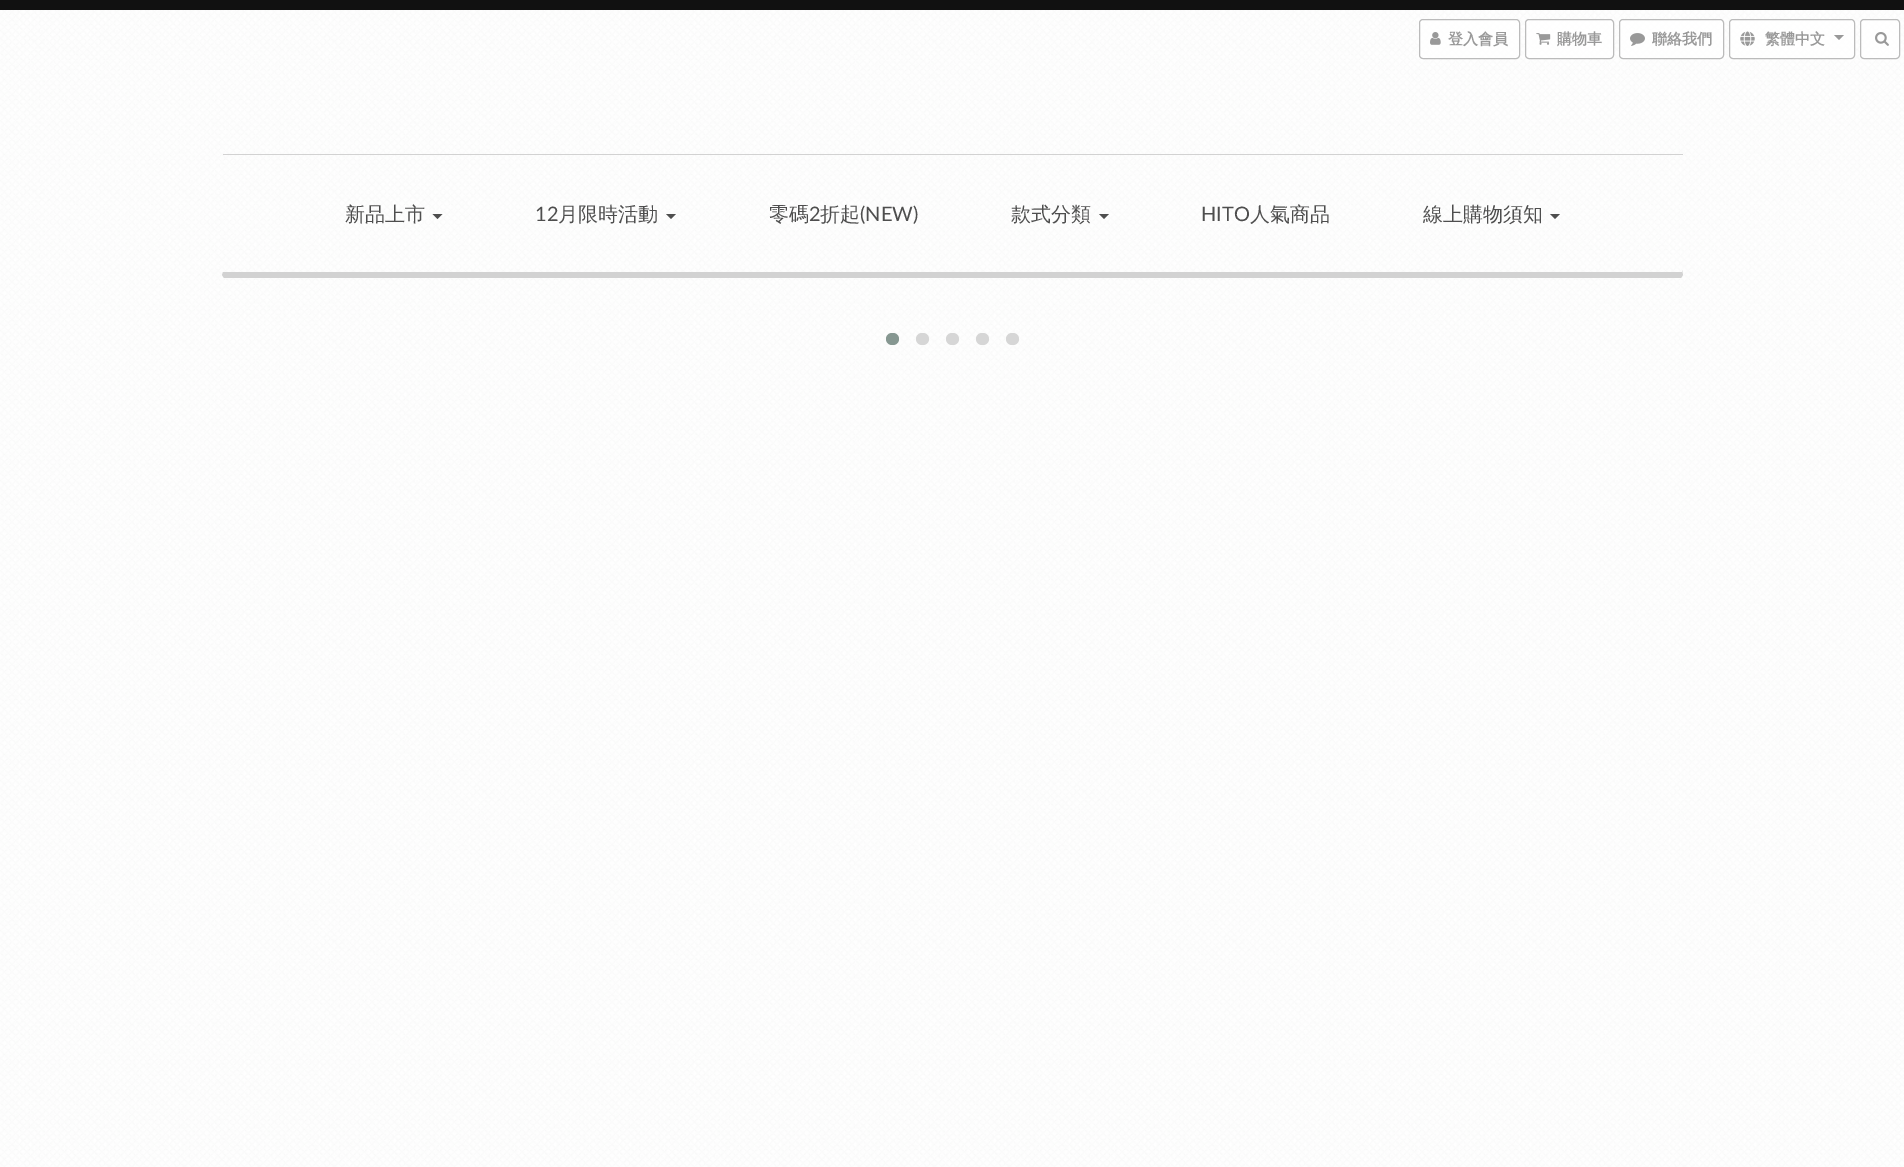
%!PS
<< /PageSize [1904 1167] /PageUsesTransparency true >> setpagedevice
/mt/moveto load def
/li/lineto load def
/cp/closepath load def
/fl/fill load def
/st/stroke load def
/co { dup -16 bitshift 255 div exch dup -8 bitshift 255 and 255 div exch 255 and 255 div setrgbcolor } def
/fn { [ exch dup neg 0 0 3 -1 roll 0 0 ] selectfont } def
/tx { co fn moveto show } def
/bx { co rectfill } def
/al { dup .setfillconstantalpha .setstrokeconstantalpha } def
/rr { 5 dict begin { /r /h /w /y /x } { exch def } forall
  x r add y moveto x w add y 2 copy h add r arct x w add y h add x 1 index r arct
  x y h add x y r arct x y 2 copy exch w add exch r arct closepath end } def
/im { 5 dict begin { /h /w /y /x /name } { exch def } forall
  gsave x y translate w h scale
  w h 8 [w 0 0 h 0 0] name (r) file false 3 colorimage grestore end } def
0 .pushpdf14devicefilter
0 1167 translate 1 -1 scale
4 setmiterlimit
0 0 1904 1167 16#FFFFFF bx
(media/1.raw) 0 10 1904 1157 im
0.8 al
1419.5 19.5 100 39 3.5 rr fl
1 al
16#BBBBBB co
1419.5 19.5 100 39 3.5 rr st
(media/2.raw) 1430 32 11 13 im
0.8 al
16#FFFFFF co
1525.5 19.5 88 39 3.5 rr fl
1 al
16#BBBBBB co
1525.5 19.5 88 39 3.5 rr st
(media/3.raw) 1536 33 15 12 im
0.8 al
16#FFFFFF co
1619.5 19.5 104 39 3.5 rr fl
1 al
16#BBBBBB co
1619.5 19.5 104 39 3.5 rr st
(media/4.raw) 1630 33 15 13 im
0.8 al
16#FFFFFF co
1729.5 19.5 125 39 3.5 rr fl
1 al
16#BBBBBB co
1729.5 19.5 125 39 3.5 rr st
(media/5.raw) 1740 31 15 15 im
16#999999 co
1834 35 mt 1844 35 li 1839 40 li cp fl
0.8 al
16#FFFFFF co
1860.5 19.5 39 39 3.5 rr fl
1 al
16#BBBBBB co
1860.5 19.5 39 39 3.5 rr st
(media/6.raw) 1875 32 14 14 im
0 0 1904 10 16#111111 bx
16#D2D2D2 co
224 278 mt 222 275 li 223 272 li 1682 272 li 1682 270 li 1683 275 li 1681 278 li cp fl
223 154 1460 1 16#D2D2D2 bx
16#4E4E4E co
432.5 214 mt 442.5 214 li 437.5 219 li cp fl
666 214 mt 676 214 li 671 219 li cp fl
1099 214 mt 1109 214 li 1104 219 li cp fl
1550 214 mt 1560 214 li 1555 219 li cp fl
16#869791 co
886 333 13 12 6 rr fl
16#D6D6D6 co
916 333 13 12 6 rr fl
946 333 13 12 6 rr fl
976 333 13 12 6 rr fl
1006 333 13 12 6 rr fl
(登入會員) 1448 44 /WenQuanYiZenHei-Bold 15 16#999999 tx
(購物車) 1557 44 /WenQuanYiZenHei-Bold 15 16#999999 tx
(聯絡我們) 1652 44 /WenQuanYiZenHei-Bold 15 16#999999 tx
(繁體中文) 1765 44 /WenQuanYiZenHei-Bold 15 16#999999 tx
(新品上市) 345 221 /WenQuanYiZenHei-Medium 20 16#4E4E4E tx
(12) 535 221 /Lato-Regular 20 16#4E4E4E tx
(月限時活動) 558 221 /WenQuanYiZenHei-Medium 20 16#4E4E4E tx
(零碼) 769 221 /WenQuanYiZenHei-Medium 20 16#4E4E4E tx
(2) 809 221 /Lato-Regular 20 16#4E4E4E tx
(折起) 820 221 /WenQuanYiZenHei-Medium 20 16#4E4E4E tx
(\(NEW\)) 860 221 /Lato-Regular 20 16#4E4E4E tx
(款式分類) 1011 221 /WenQuanYiZenHei-Medium 20 16#4E4E4E tx
(HITO) 1201 221 /Lato-Regular 20 16#4E4E4E tx
(人氣商品) 1250 221 /WenQuanYiZenHei-Medium 20 16#4E4E4E tx
(線上購物須知) 1423 221 /WenQuanYiZenHei-Medium 20 16#4E4E4E tx
.poppdf14devicefilter showpage
